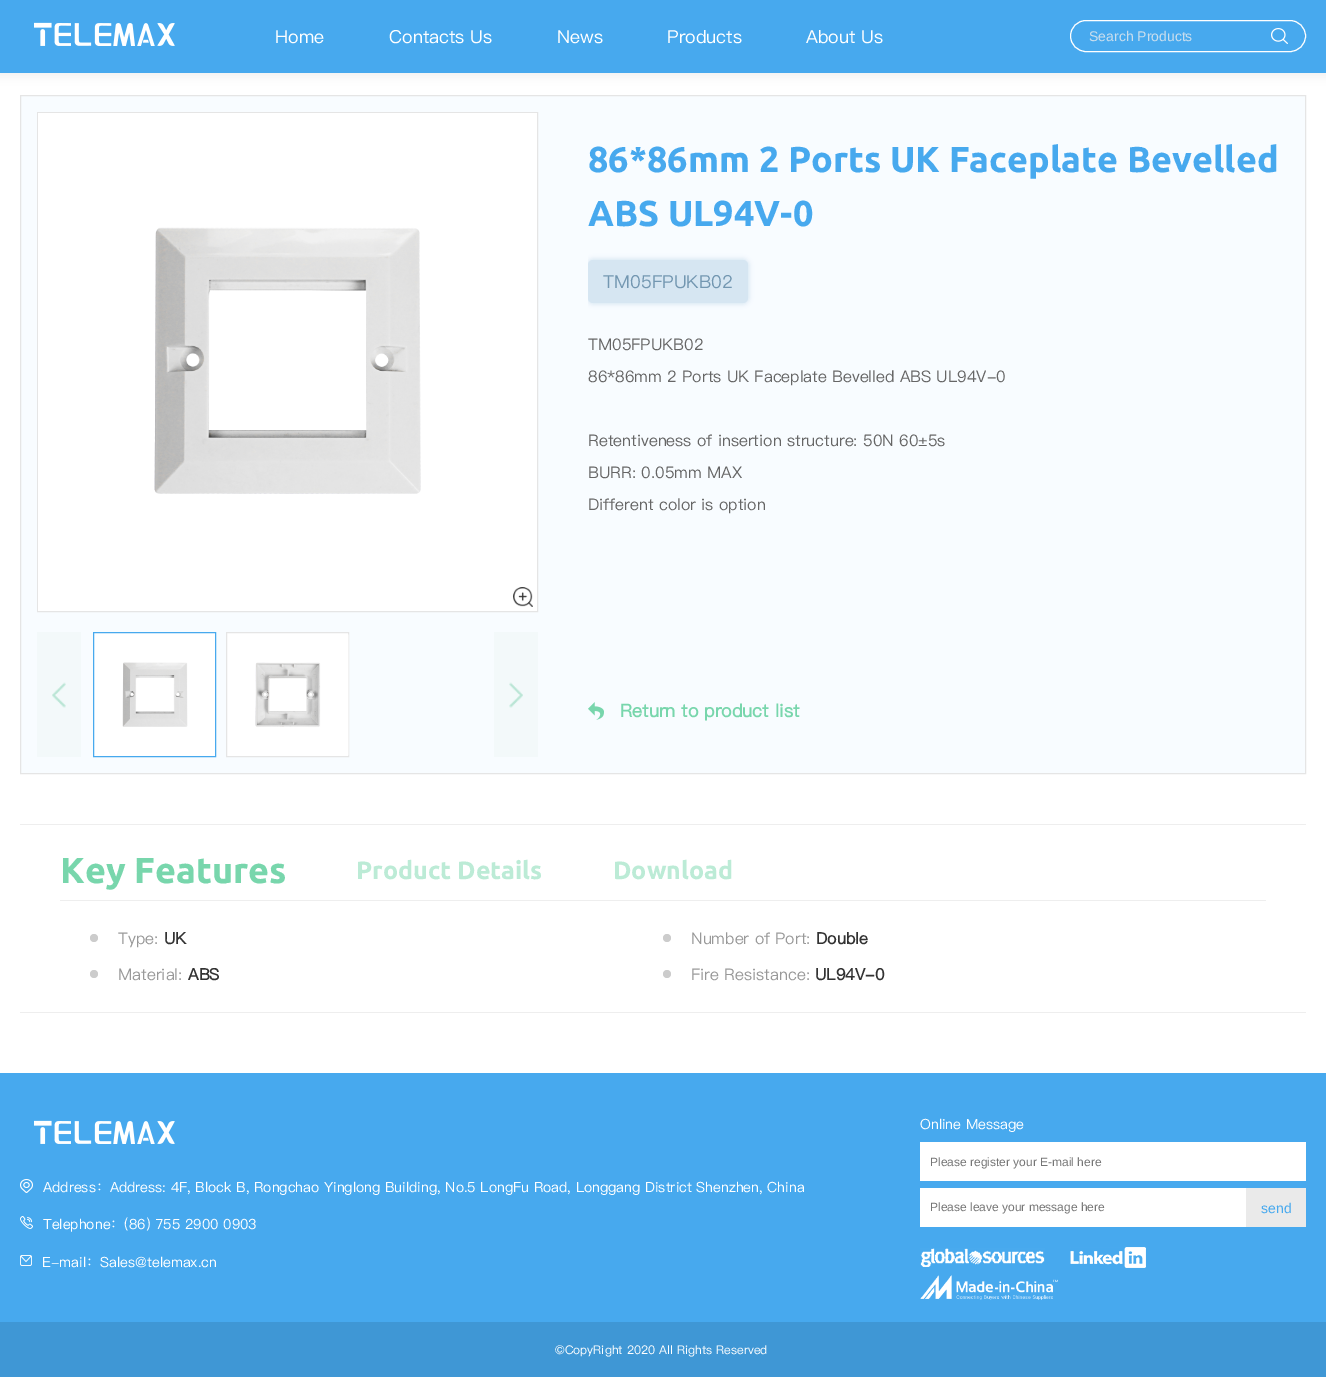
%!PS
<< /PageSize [1326 1377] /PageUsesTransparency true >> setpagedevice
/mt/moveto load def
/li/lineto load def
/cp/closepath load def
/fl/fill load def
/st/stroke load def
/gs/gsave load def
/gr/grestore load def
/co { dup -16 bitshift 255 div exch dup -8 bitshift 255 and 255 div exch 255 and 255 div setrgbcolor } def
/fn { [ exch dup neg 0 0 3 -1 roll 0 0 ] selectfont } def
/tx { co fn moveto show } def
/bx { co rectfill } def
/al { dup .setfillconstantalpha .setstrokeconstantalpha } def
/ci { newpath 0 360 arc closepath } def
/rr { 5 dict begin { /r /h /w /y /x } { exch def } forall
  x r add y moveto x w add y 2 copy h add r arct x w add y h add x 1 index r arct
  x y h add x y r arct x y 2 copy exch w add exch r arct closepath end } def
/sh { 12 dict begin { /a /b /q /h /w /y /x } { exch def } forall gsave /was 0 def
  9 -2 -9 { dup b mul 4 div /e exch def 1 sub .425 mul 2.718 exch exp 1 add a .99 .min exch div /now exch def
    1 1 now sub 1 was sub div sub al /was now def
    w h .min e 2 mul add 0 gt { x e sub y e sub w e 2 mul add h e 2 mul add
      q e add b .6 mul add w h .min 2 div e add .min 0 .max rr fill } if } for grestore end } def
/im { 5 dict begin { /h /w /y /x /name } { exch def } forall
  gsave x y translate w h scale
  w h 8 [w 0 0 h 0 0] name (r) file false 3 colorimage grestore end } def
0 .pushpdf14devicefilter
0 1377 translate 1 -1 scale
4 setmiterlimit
0 0 1326 1377 16#FFFFFF bx
16#000000 co
-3 -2 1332 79 0 5 .05 sh
0 0 1326 73 16#47A9EE bx
(media/1.raw) 34 22 141 24 im
16#FFFFFF co
1070.5 20.5 235 31 15.5 rr st
(media/2.raw) 1271 28 17 16 im
16#F8FCFF co
20.5 95.5 mt 1305.5 95.5 li 1305.5 773.5 li 20.5 773.5 li cp gs fl gr
16#E5E5E5 co
st
37.5 112.5 500 499 rectstroke
38 113 499 498 16#FFFFFF bx
(media/3.raw) 154 227 267 267 im
(media/4.raw) 513 587 20 20 im
(media/5.raw) 37 632 44 125 im
93.5 632.5 mt 215.5 632.5 li 215.5 756.5 li 93.5 756.5 li cp gs fl gr
16#47A9EE co
st
(media/6.raw) 122 662 66 65 im
16#FFFFFF co
226.5 632.5 mt 348.5 632.5 li 348.5 756.5 li 226.5 756.5 li cp gs fl gr
16#E5E5E5 co
st
(media/7.raw) 255 634 94 122 im
(media/8.raw) 494 632 44 125 im
gs
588 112 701 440 rectclip
16#D6E6F2 co
587 259 162 45 6 2.5 1 sh
gr
16#D6E6F2 co
588 260 160 43 5 rr fl
(media/9.raw) 588 702 16 18 im
20 824 1286 1 16#EEEEEE bx
20 1012 1286 1 16#EEEEEE bx
60 900 1206 1 16#EEEEEE bx
16#CCCCCC co
94 938 4 ci fl
667 938 4 ci fl
94 974 4 ci fl
667 974 4 ci fl
0 1073 1326 249 16#47A9EE bx
920 1142 386 39 16#FFFFFF bx
920 1188 326 39 16#FFFFFF bx
1246 1188 60 39 16#EAEAEA bx
(media/10.raw) 920 1248 125 19 im
(media/11.raw) 1070 1247 76 21 im
(media/12.raw) 920 1275 138 25 im
(media/1.raw) 34 1120 141 24 im
(media/13.raw) 20 1179 13 14 im
(media/14.raw) 20 1216 13 13 im
(media/15.raw) 20 1255 12 11 im
0 1322 1326 55 16#3F97D5 bx
(Home) 275 43 /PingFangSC-Medium 18 16#FFFFFF tx
(Contacts Us) 389 43 /PingFangSC-Medium 18 16#FFFFFF tx
(News) 557 43 /PingFangSC-Medium 18 16#FFFFFF tx
(Products) 667 43 /PingFangSC-Medium 18 16#FFFFFF tx
(About Us) 806 43 /PingFangSC-Medium 18 16#FFFFFF tx
(Search Products) 1089 41 /LiberationSans-Regular 14 16#CADEED tx
(86*86mm 2 Ports UK Faceplate Bevelled) 588 172 /Ubuntu-Bold 36 16#47A9EE tx
(ABS UL94V-0) 588 226 /Ubuntu-Bold 36 16#47A9EE tx
(TM05FPUKB02) 603 288 /PingFangSC-Medium 18 16#7397B1 tx
(TM05FPUKB02) 588 350 /PingFangSC-Medium 16 16#666666 tx
(86*86mm 2 Ports UK Faceplate Bevelled ABS UL94V-0) 588 382 /PingFangSC-Medium 16 16#666666 tx
(Retentiveness of insertion structure: 50N 60±5s) 588 446 /PingFangSC-Medium 16 16#666666 tx
(BURR: 0.05mm MAX) 588 478 /PingFangSC-Medium 16 16#666666 tx
(Different color is option) 588 510 /PingFangSC-Medium 16 16#666666 tx
(Return to product list) 620 717 /PingFangSC-Bold 18 16#78D6AC tx
(Key Features) 60 883 /Ubuntu-Bold 36 16#78D6AC tx
(Product Details) 356 879 /Ubuntu-Bold 25 16#BCEBD6 tx
(Download) 613 879 /Ubuntu-Bold 25 16#BCEBD6 tx
(Type:) 118 944 /PingFangSC-Medium 16 16#999999 tx
(UK) 164 944 /PingFangSC-Bold 16 16#333333 tx
(Number of Port:) 691 944 /PingFangSC-Medium 16 16#999999 tx
(Double) 816 944 /PingFangSC-Bold 16 16#333333 tx
(Material:) 118 980 /PingFangSC-Medium 16 16#999999 tx
(ABS) 188 980 /PingFangSC-Bold 16 16#333333 tx
(Fire Resistance:) 691 980 /PingFangSC-Medium 16 16#999999 tx
(UL94V-0) 815 980 /PingFangSC-Bold 16 16#333333 tx
(Online Message) 920 1129 /PingFangSC-Medium 14 16#FFFFFF tx
(Please register your E-mail here) 930 1166 /LiberationSans-Regular 12 16#757575 tx
(Please leave your message here) 930 1211 /LiberationSans-Regular 12 16#757575 tx
(send) 1261 1213 /LiberationSans-Regular 14 16#47A9EE tx
(Address：Address: 4F, Block B, Rongchao Yinglong Building, No.5 LongFu Road, Longgang District Shenzhen, China) 43 1192 /PingFangSC-Medium 14 16#FFFFFF tx
(Telephone：\(86\) 755 2900 0903) 43 1229 /PingFangSC-Medium 14 16#FFFFFF tx
(E-mail：Sales@telemax.cn) 42 1267 /PingFangSC-Medium 14 16#FFFFFF tx
(©CopyRight 2020 All Rights Reserved) 555 1354 /PingFangSC-Medium 12 16#FFFFFF tx
.poppdf14devicefilter showpage
